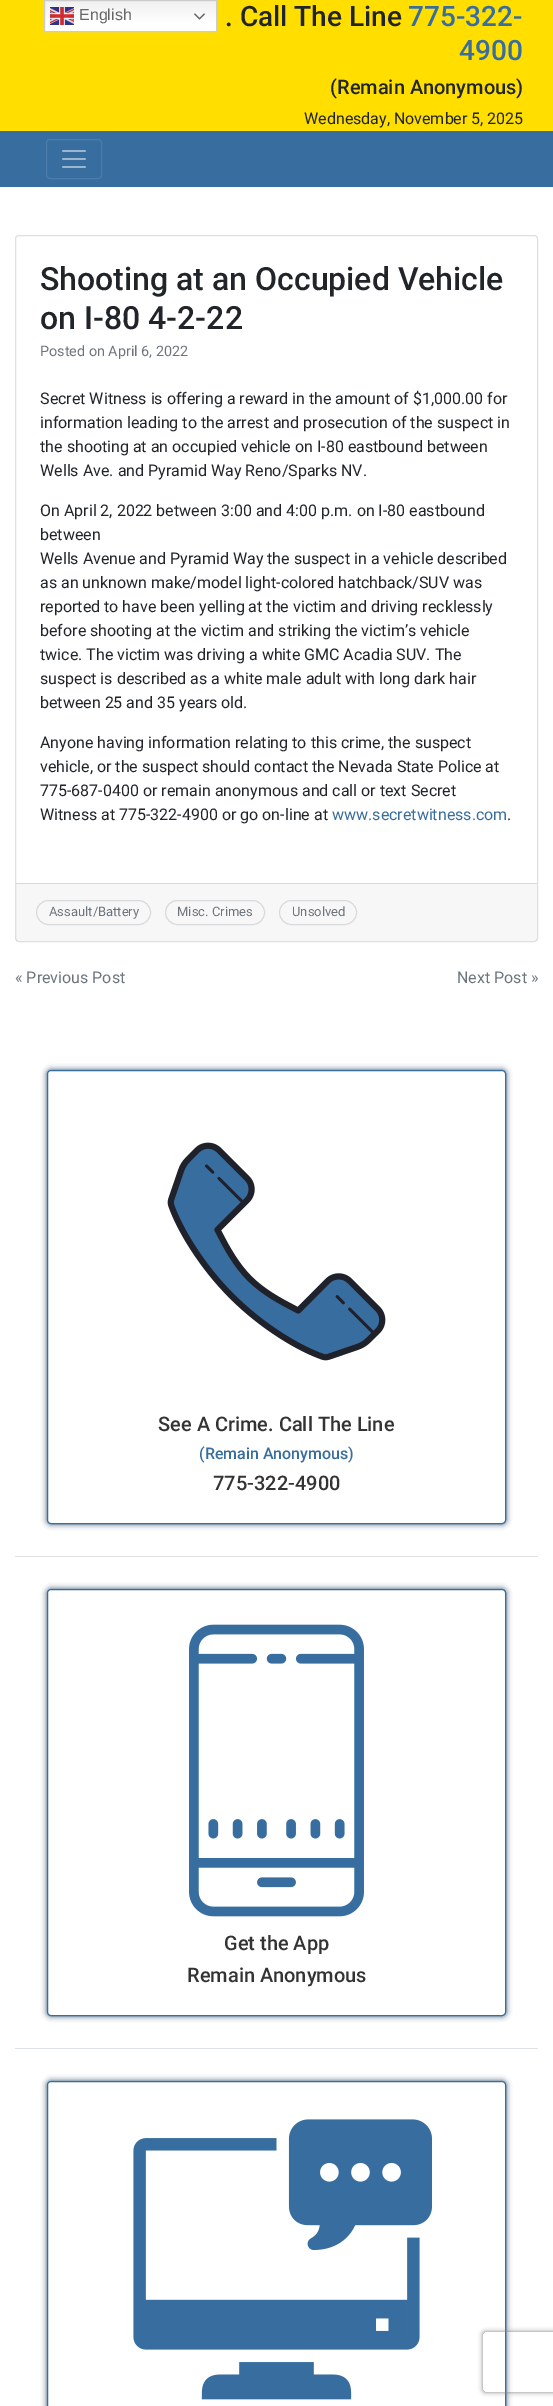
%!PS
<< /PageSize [553 2406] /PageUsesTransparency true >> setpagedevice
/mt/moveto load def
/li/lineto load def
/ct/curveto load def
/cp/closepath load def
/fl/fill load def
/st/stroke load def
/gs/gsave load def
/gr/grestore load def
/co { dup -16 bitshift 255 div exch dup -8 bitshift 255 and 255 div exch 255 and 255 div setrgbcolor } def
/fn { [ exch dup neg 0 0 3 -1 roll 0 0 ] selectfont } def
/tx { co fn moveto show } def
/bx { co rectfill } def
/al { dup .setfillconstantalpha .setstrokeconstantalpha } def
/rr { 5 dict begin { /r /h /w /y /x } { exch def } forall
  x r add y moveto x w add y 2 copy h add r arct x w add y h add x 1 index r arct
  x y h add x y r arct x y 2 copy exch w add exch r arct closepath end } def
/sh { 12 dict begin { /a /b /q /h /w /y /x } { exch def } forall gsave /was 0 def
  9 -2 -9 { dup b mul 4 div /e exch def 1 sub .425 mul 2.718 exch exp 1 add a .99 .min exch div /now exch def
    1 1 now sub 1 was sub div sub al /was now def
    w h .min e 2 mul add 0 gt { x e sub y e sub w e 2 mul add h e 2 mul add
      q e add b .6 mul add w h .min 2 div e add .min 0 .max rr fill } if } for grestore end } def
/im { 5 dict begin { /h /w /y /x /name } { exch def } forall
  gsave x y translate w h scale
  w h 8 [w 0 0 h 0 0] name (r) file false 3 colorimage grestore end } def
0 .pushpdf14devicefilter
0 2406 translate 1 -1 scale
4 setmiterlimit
0 0 553 2406 16#FFFFFF bx
0 0 553 131 16#FFDE00 bx
0 131 553 56 16#386D9F bx
16#4C7CA9 co
46.5 139.5 55 39 3.5 rr st
(media/1.raw) 62 150 24 18 im
16#DFDFDF co
15.5 235.5 522 706 3.5 rr st
0.03 al
16 884 521 57 16#000000 bx
1 al
16 883 521 1 16#D8D8D8 bx
16#D9DADB co
36.5 900.5 114 24 12 rr st
165.5 900.5 99 24 12 rr st
279.5 900.5 77 24 12 rr st
15 1556 523 1 16#DEE2E6 bx
16#244666 co
47 1070 459 454 4 3 1 sh
16#FFFFFF co
47.5 1070.5 458 453 3.5 rr gs fl gr
16#386D9F co
st
(media/2.raw) 167 1142 219 219 im
15 2048 523 1 16#DEE2E6 bx
16#244666 co
47 1589 459 427 4 3 1 sh
16#FFFFFF co
47.5 1589.5 458 426 3.5 rr gs fl gr
16#386D9F co
st
(media/3.raw) 189 1624 175 293 im
16#244666 co
47 2081 459 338 4 3 1 sh
16#FFFFFF co
47.5 2081.5 458 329 3.5 rr gs fl gr
16#386D9F co
st
(media/4.raw) 133 2119 300 281 im
gs 45 1 mt 216 1 li 216 31 li 45 31 li cp clip newpath
<< /ShadingType 2 /ColorSpace /DeviceRGB /Coords [131 0 131 32] /Extend [true true] /Function << /FunctionType 3 /Domain [0 1] /Functions [<< /FunctionType 2 /Domain [0 1] /C0 [.937 .937 .937] /C1 [1 1 1] /N 1 >> << /FunctionType 2 /Domain [0 1] /C0 [1 1 1] /C1 [1 1 1] /N 1 >>] /Bounds [.7] /Encode [0 1 0 1] >> >> shfill gr
16#CCCCCC co
44.5 .5 172 31 rectstroke
(media/5.raw) 50 7 24 18 im
(media/6.raw) 194 13 11 7 im
gs
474 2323 mt 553 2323 li 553 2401 li 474 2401 li cp 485 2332 mt 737 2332 li 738 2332 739 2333 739 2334 ct 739 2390 li 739 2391 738 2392 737 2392 ct 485 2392 li 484 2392 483 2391 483 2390 ct 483 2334 li 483 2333 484 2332 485 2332 ct cp eoclip newpath
16#808080 co
483 2332 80 60 2 2.5 1 sh
gr
(. Call The Line) 225 26 /Roboto-Medium 28 16#212529 tx
(775-322-) 408 26 /Roboto-Medium 28 16#386D9F tx
(4900) 459 60 /Roboto-Medium 28 16#386D9F tx
(\(Remain Anonymous\)) 330 94 /Roboto-Medium 20 16#212529 tx
(Wednesday, November 5, 2025) 304 124 /Roboto-Regular 16 16#212529 tx
(Shooting at an Occupied Vehicle) 40 290 /Roboto-Medium 32 16#212529 tx
(on I-80 4-2-22) 40 329 /Roboto-Medium 32 16#212529 tx
(Posted on April 6, 2022) 40 356 /Roboto-Regular 14.4 16#6C757D tx
(Secret Witness is offering a reward in the amount of $1,000.00 for) 40 404 /Roboto-Regular 16 16#212529 tx
(information leading to the arrest and prosecution of the suspect in) 40 428 /Roboto-Regular 16 16#212529 tx
(the shooting at an occupied vehicle on I-80 eastbound between) 40 452 /Roboto-Regular 16 16#212529 tx
(Wells Ave. and Pyramid Way Reno/Sparks NV.) 40 476 /Roboto-Regular 16 16#212529 tx
(On April 2, 2022 between 3:00 and 4:00 p.m. on I-80 eastbound) 40 516 /Roboto-Regular 16 16#212529 tx
(between) 40 540 /Roboto-Regular 16 16#212529 tx
(Wells Avenue and Pyramid Way the suspect in a vehicle described) 40 564 /Roboto-Regular 16 16#212529 tx
(as an unknown make/model light-colored hatchback/SUV was) 40 588 /Roboto-Regular 16 16#212529 tx
(reported to have been yelling at the victim and driving recklessly) 40 612 /Roboto-Regular 16 16#212529 tx
(before shooting at the victim and striking the victim’s vehicle) 40 636 /Roboto-Regular 16 16#212529 tx
(twice. The victim was driving a white GMC Acadia SUV. The) 40 660 /Roboto-Regular 16 16#212529 tx
(suspect is described as a white male adult with long dark hair) 40 684 /Roboto-Regular 16 16#212529 tx
(between 25 and 35 years old.) 40 708 /Roboto-Regular 16 16#212529 tx
(Anyone having information relating to this crime, the suspect) 40 748 /Roboto-Regular 16 16#212529 tx
(vehicle, or the suspect should contact the Nevada State Police at) 40 772 /Roboto-Regular 16 16#212529 tx
(775-687-0400 or remain anonymous and call or text Secret) 40 796 /Roboto-Regular 16 16#212529 tx
(Witness at 775-322-4900 or go on-line at) 40 820 /Roboto-Regular 16 16#212529 tx
(www.secretwitness.com) 332 820 /Roboto-Regular 16 16#386D9F tx
(.) 507 820 /Roboto-Regular 16 16#212529 tx
(Assault/Battery) 49 916 /Roboto-Regular 13 16#6C757D tx
(Misc. Crimes) 177 916 /Roboto-Regular 13 16#6C757D tx
(Unsolved) 292 916 /Roboto-Regular 13 16#6C757D tx
(« Previous Post) 15 983 /Roboto-Regular 16 16#6C757D tx
(Next Post ») 457 983 /Roboto-Regular 16 16#6C757D tx
(See A Crime. Call The Line) 158 1431 /Roboto-Medium 20 16#333333 tx
(\(Remain Anonymous\)) 199 1459 /Roboto-Medium 16 16#386D9F tx
(775-322-4900) 213 1490 /Roboto-Medium 20 16#333333 tx
(Get the App) 224 1950 /Roboto-Medium 20 16#333333 tx
(Remain Anonymous) 187 1982 /Roboto-Medium 20 16#333333 tx
(English) 79 20 /LiberationSans-Regular 16 16#666666 tx
.poppdf14devicefilter showpage
